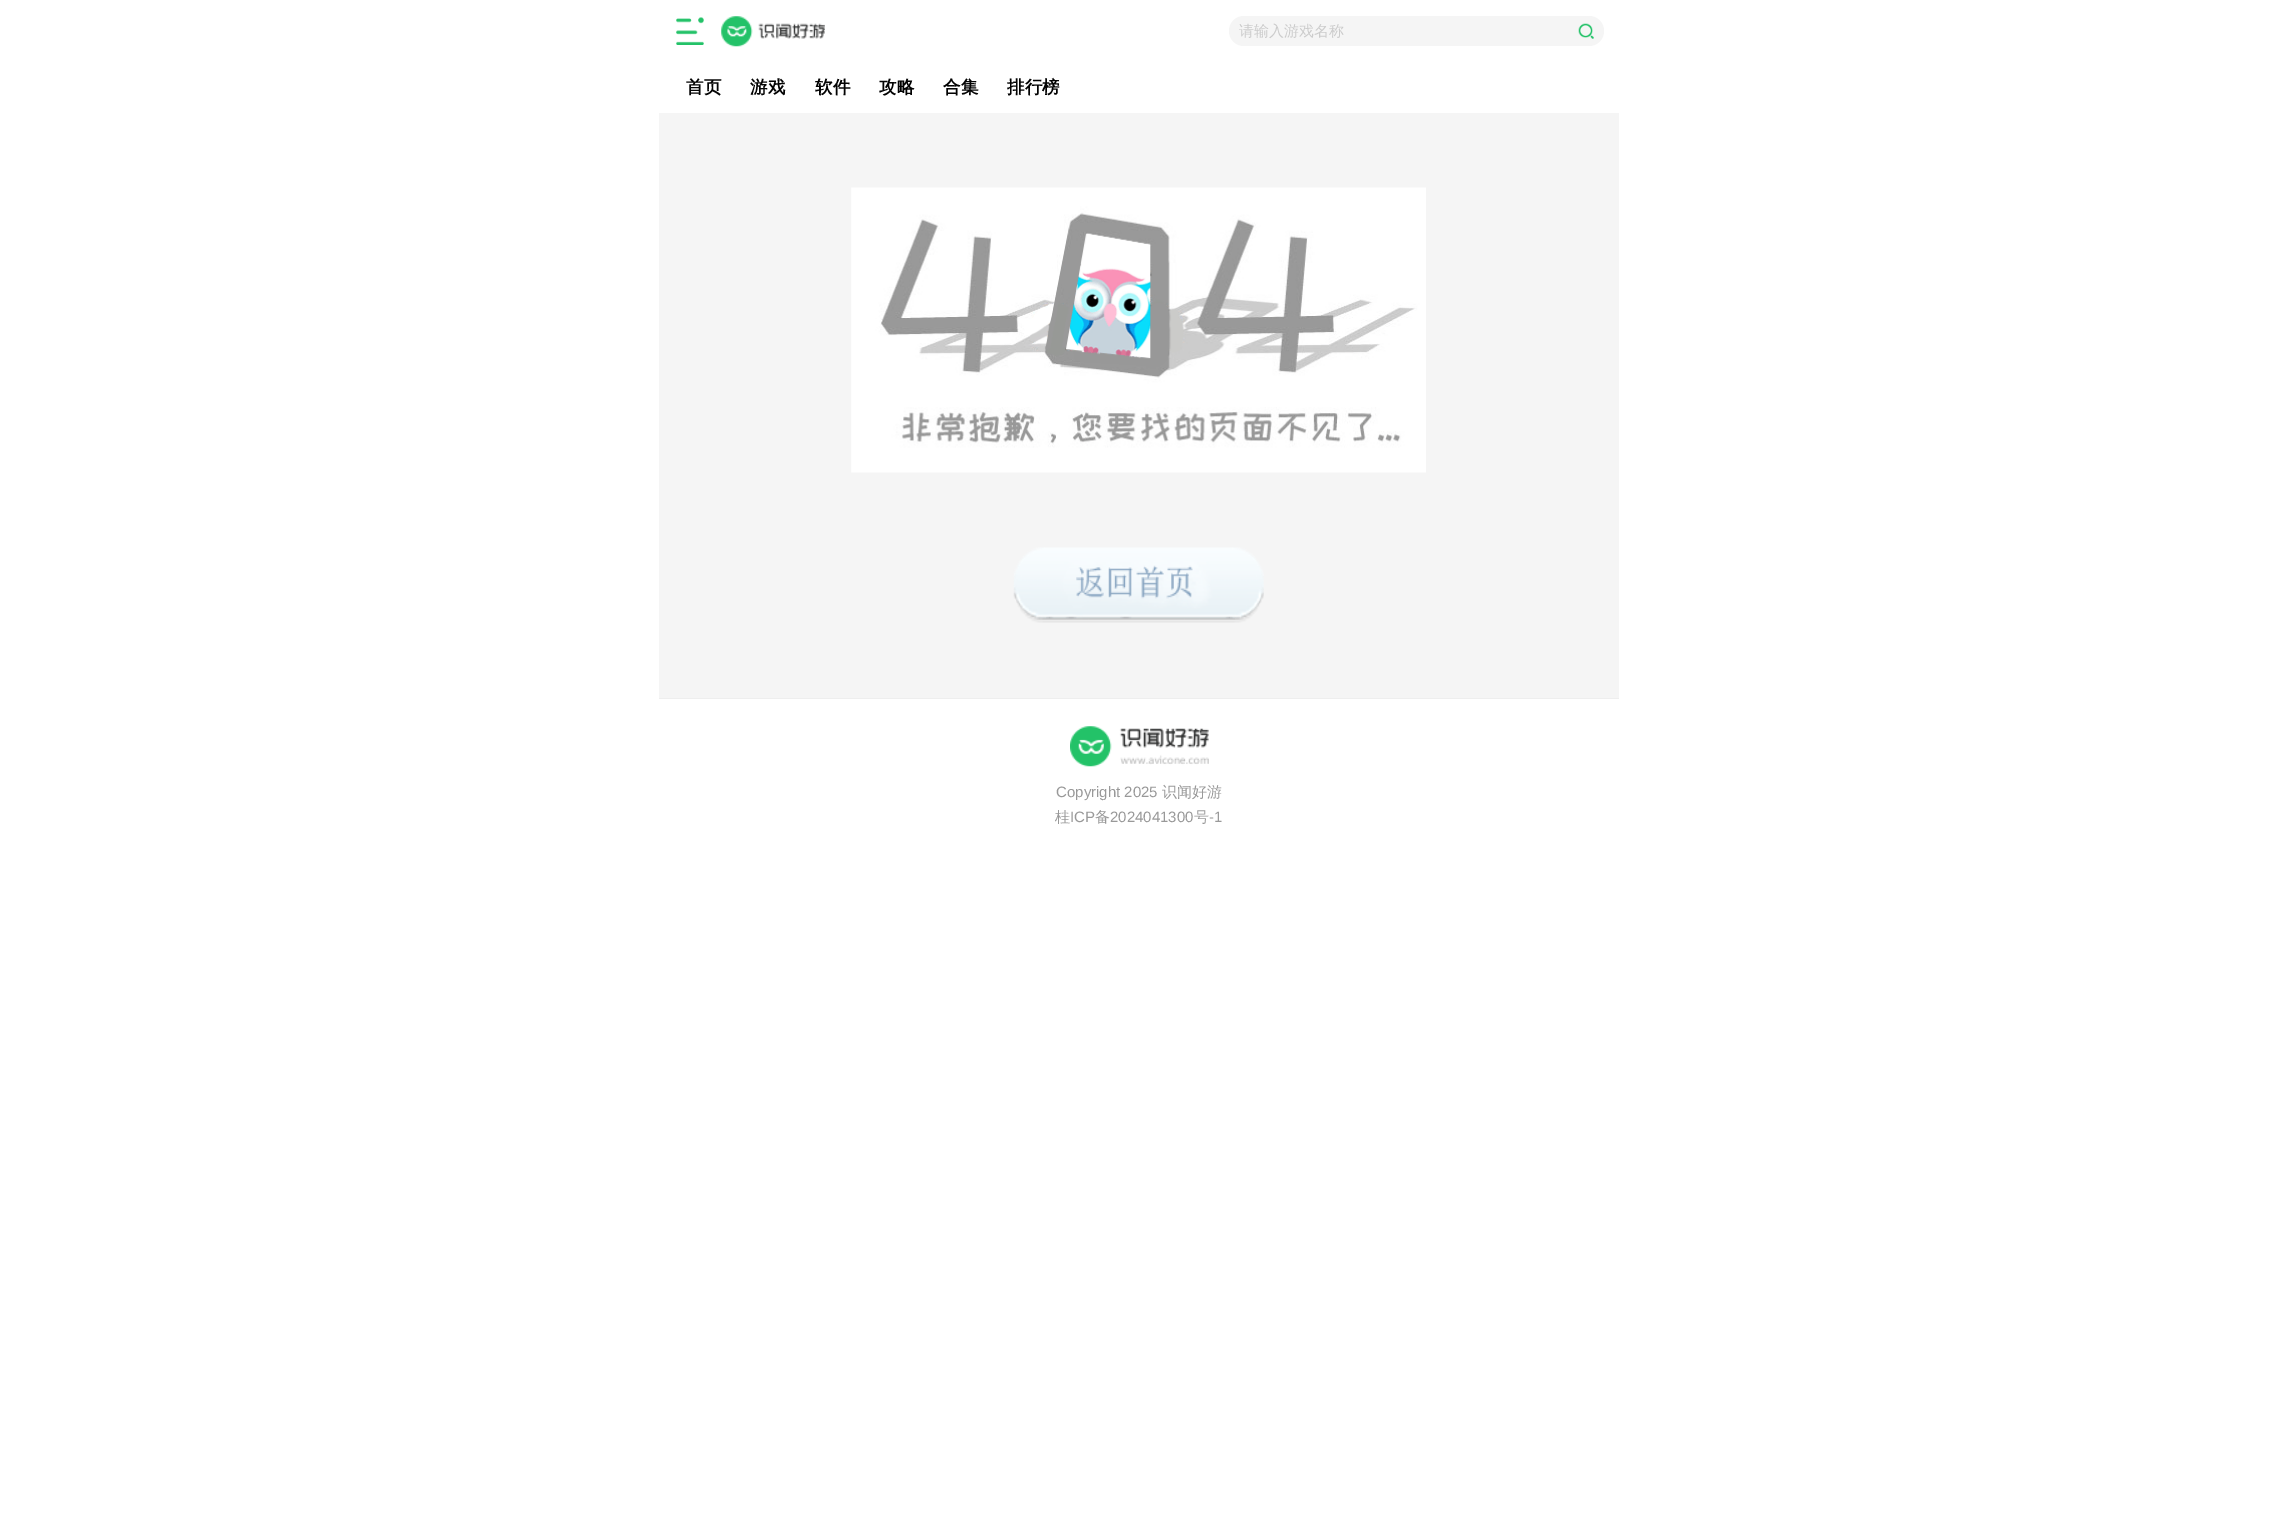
%!PS
<< /PageSize [2277 1532] >> setpagedevice
/fl/fill load def
/co { dup -16 bitshift 255 div exch dup -8 bitshift 255 and 255 div exch 255 and 255 div setrgbcolor } def
/fn { [ exch dup neg 0 0 3 -1 roll 0 0 ] selectfont } def
/tx { co fn moveto show } def
/bx { co rectfill } def
/rr { 5 dict begin { /r /h /w /y /x } { exch def } forall
  x r add y moveto x w add y 2 copy h add r arct x w add y h add x 1 index r arct
  x y h add x y r arct x y 2 copy exch w add exch r arct closepath end } def
/im { 5 dict begin { /h /w /y /x /name } { exch def } forall
  gsave x y translate w h scale
  w h 8 [w 0 0 h 0 0] name (r) file false 3 colorimage grestore end } def
0 1532 translate 1 -1 scale
4 setmiterlimit
0 0 2277 1532 16#FFFFFF bx
659 113 960 585 16#F5F5F5 bx
(media/1.raw) 676 17 28 28 im
(media/2.raw) 721 16 104 31 im
1229 16 375 30 15 rr fl
(media/3.raw) 1578 23 16 16 im
(media/4.raw) 851 187 575 286 im
(media/5.raw) 1013 547 251 76 im
659 698 960 1 16#EEEEEE bx
(media/6.raw) 1070 726 139 41 im
(请输入游戏名称) 1239 36 /WenQuanYiZenHei-Medium 15 16#CCCCCC tx
(首页) 686 93 /WenQuanYiZenHei-Bold 17.5 16#030303 tx
(游戏) 750 93 /WenQuanYiZenHei-Bold 17.5 16#030303 tx
(软件) 815 93 /WenQuanYiZenHei-Bold 17.5 16#030303 tx
(攻略) 879 93 /WenQuanYiZenHei-Bold 17.5 16#030303 tx
(合集) 943 93 /WenQuanYiZenHei-Bold 17.5 16#030303 tx
(排行榜) 1007 93 /WenQuanYiZenHei-Bold 17.5 16#030303 tx
(Copyright 2025) 1056 797 /LiberationSans-Regular 15 16#999999 tx
(识闻好游) 1162 797 /WenQuanYiZenHei-Medium 15 16#999999 tx
(桂) 1055 822 /WenQuanYiZenHei-Medium 15 16#999999 tx
(ICP) 1070 822 /LiberationSans-Regular 15 16#999999 tx
(备) 1095 822 /WenQuanYiZenHei-Medium 15 16#999999 tx
(2024041300) 1110 822 /LiberationSans-Regular 15 16#999999 tx
(号) 1194 822 /WenQuanYiZenHei-Medium 15 16#999999 tx
(-1) 1209 822 /LiberationSans-Regular 15 16#999999 tx
showpage
